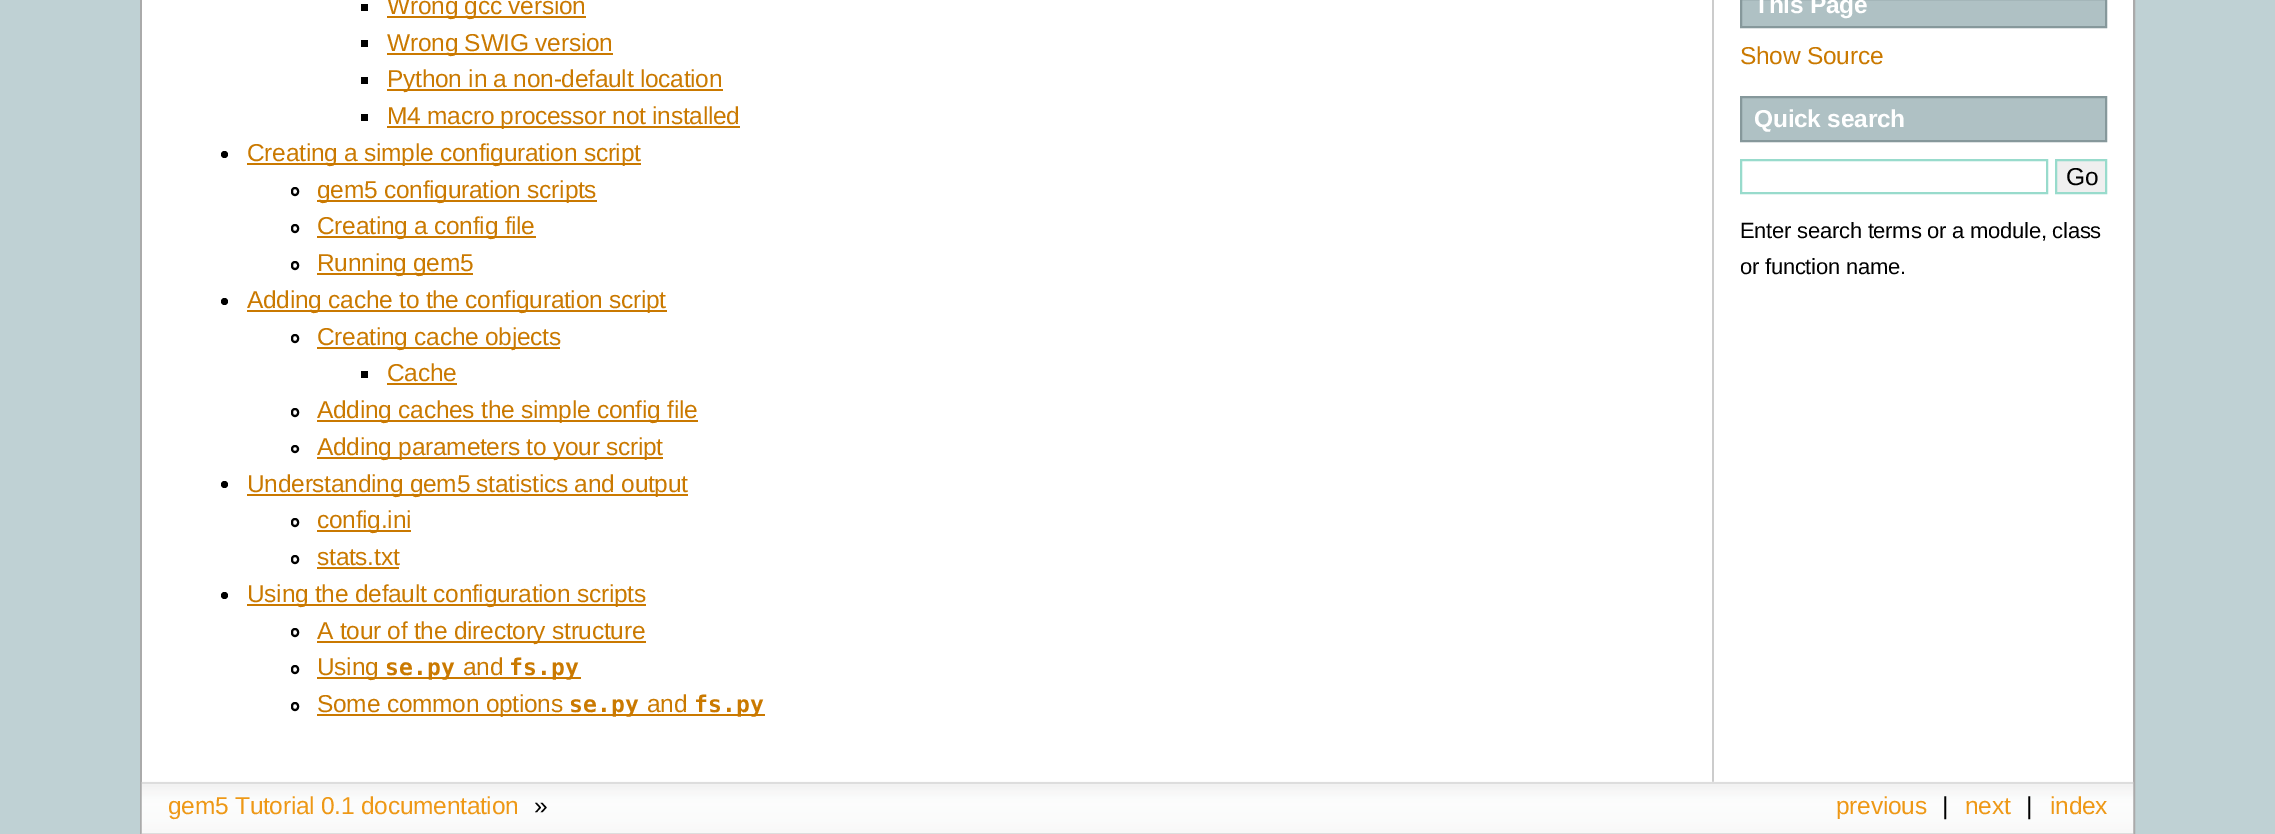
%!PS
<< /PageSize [2275 834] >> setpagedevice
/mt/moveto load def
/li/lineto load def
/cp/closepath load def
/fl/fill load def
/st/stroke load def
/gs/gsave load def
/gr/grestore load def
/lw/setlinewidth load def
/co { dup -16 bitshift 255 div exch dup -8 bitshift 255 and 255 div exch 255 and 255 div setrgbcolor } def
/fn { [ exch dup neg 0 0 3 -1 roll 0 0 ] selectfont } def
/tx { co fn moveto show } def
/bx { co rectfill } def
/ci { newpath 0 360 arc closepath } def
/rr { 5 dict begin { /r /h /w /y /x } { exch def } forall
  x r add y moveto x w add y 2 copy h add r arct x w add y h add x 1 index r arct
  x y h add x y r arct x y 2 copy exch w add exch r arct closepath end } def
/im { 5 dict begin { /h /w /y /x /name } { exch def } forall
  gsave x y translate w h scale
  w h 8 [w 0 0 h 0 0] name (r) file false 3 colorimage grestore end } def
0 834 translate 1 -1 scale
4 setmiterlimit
0 0 2275 834 16#BFD1D4 bx
16#AAAAAA co
2 lw
141 -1 1993 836 rectstroke
142 0 1991 782 16#FFFFFF bx
1712 0 2 782 16#CCCCCC bx
361 4 7 7 16#000000 bx
387 16 199 2 16#CA7900 bx
361 40 7 7 16#000000 bx
387 53 226 2 16#CA7900 bx
361 77 7 7 16#000000 bx
387 89 336 2 16#CA7900 bx
361 114 7 7 16#000000 bx
387 126 353 2 16#CA7900 bx
16#000000 co
224.5 154.5 3.5 ci fl
247 163 394 2 16#CA7900 bx
16#000000 co
292 188 6 7 3 rr st
317 200 280 2 16#CA7900 bx
16#000000 co
292 225 6 7 3 rr st
317 236 219 2 16#CA7900 bx
16#000000 co
292 262 6 7 3 rr st
317 273 156 2 16#CA7900 bx
16#000000 co
224.5 301.5 3.5 ci fl
247 310 420 2 16#CA7900 bx
16#000000 co
292 335 6 7 3 rr st
317 347 243 2 16#CA7900 bx
361 371 7 7 16#000000 bx
387 383 70 2 16#CA7900 bx
16#000000 co
292 409 6 7 3 rr st
317 420 381 2 16#CA7900 bx
16#000000 co
295 449 3 ci st
317 457 346 2 16#CA7900 bx
16#000000 co
224.5 484.5 3.5 ci fl
247 494 441 2 16#CA7900 bx
16#000000 co
292 519 6 7 3 rr st
317 530 94 2 16#CA7900 bx
16#000000 co
292 556 6 7 3 rr st
317 567 82 2 16#CA7900 bx
16#000000 co
224.5 595.5 3.5 ci fl
247 604 399 2 16#CA7900 bx
16#000000 co
292 629 6 7 3 rr st
317 641 329 2 16#CA7900 bx
16#000000 co
292 666 6 7 3 rr st
317 677 264 2 16#CA7900 bx
16#000000 co
292 703 6 7 3 rr st
317 714 448 2 16#CA7900 bx
16#AFC1C4 co
1741 -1 mt 2106 -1 li 2106 27 li 1741 27 li cp gs fl gr
16#86989B co
st
16#AFC1C4 co
1741 97 mt 2106 97 li 2106 141 li 1741 141 li cp gs fl gr
16#86989B co
st
16#98DBCC co
1741 160 306 33 rectstroke
16#EFEFEF co
2056 160 mt 2106 160 li 2106 193 li 2056 193 li cp gs fl gr
16#98DBCC co
st
(media/1.raw) 141 781 1993 53 im
142 782 1991 2 16#DDDDDD bx
142 833 1991 1 16#DDDDDD bx
/LiberationSans-Regular 24.5 fn
16#CA7900 co
387 14 mt -.25 0 (Wrong gcc version) ashow
387 51 mt -.25 0 (Wrong SWIG version) ashow
387 87 mt -.25 0 (Python in a non-default location) ashow
387 124 mt -.25 0 (M4 macro processor not installed) ashow
247 161 mt -.25 0 (Creating a simple configuration script) ashow
317 198 mt -.25 0 (gem5 configuration scripts) ashow
317 234 mt -.25 0 (Creating a config file) ashow
317 271 mt -.25 0 (Running gem5) ashow
247 308 mt -.25 0 (Adding cache to the configuration script) ashow
317 345 mt -.25 0 (Creating cache objects) ashow
387 381 mt -.25 0 (Cache) ashow
317 418 mt -.25 0 (Adding caches the simple config file) ashow
317 455 mt -.25 0 (Adding parameters to your script) ashow
247 492 mt -.25 0 (Understanding gem5 statistics and output) ashow
317 528 mt -.25 0 (config.ini) ashow
317 565 mt -.25 0 (stats.txt) ashow
247 602 mt -.25 0 (Using the default configuration scripts) ashow
317 639 mt -.25 0 (A tour of the directory structure) ashow
317 675 mt -.25 0 (Using) ashow
/DejaVuSansMono-Bold 23 fn
385 675 mt .25 0 (se.py) ashow
/LiberationSans-Regular 24.5 fn
463 675 mt -.25 0 (and) ashow
/DejaVuSansMono-Bold 23 fn
509 675 mt .25 0 (fs.py) ashow
/LiberationSans-Regular 24.5 fn
317 712 mt -.25 0 (Some common options) ashow
/DejaVuSansMono-Bold 23 fn
569 712 mt .25 0 (se.py) ashow
/LiberationSans-Regular 24.5 fn
647 712 mt -.25 0 (and) ashow
/DejaVuSansMono-Bold 23 fn
694 712 mt .25 0 (fs.py) ashow
/LiberationSans-Bold 24.5 fn
16#FFFFFF co
1754 13 mt -.25 0 (This Page) ashow
/LiberationSans-Regular 24.5 fn
16#CA7900 co
1740 64 mt -.25 0 (Show Source) ashow
/LiberationSans-Bold 24.5 fn
16#FFFFFF co
1754 127 mt -.25 0 (Quick search) ashow
(Go) 2066 185 /LiberationSans-Regular 24.5 16#000000 tx
/LiberationSans-Regular 22 fn
1740 238 mt -.25 0 (Enter search terms or a module, class) ashow
1740 274 mt -.25 0 (or function name.) ashow
/LiberationSans-Regular 24.5 fn
16#EE9816 co
168 814 mt -.25 0 (gem5 Tutorial 0.1 documentation) ashow
16#000000 co
534 814 mt -.25 0 (») ashow
16#EE9816 co
1836 814 mt -.25 0 (previous) ashow
16#000000 co
1942 814 mt -.25 0 (|) ashow
16#EE9816 co
1965 814 mt -.25 0 (next) ashow
16#000000 co
2026 814 mt -.25 0 (|) ashow
16#EE9816 co
2050 814 mt -.25 0 (index) ashow
showpage
